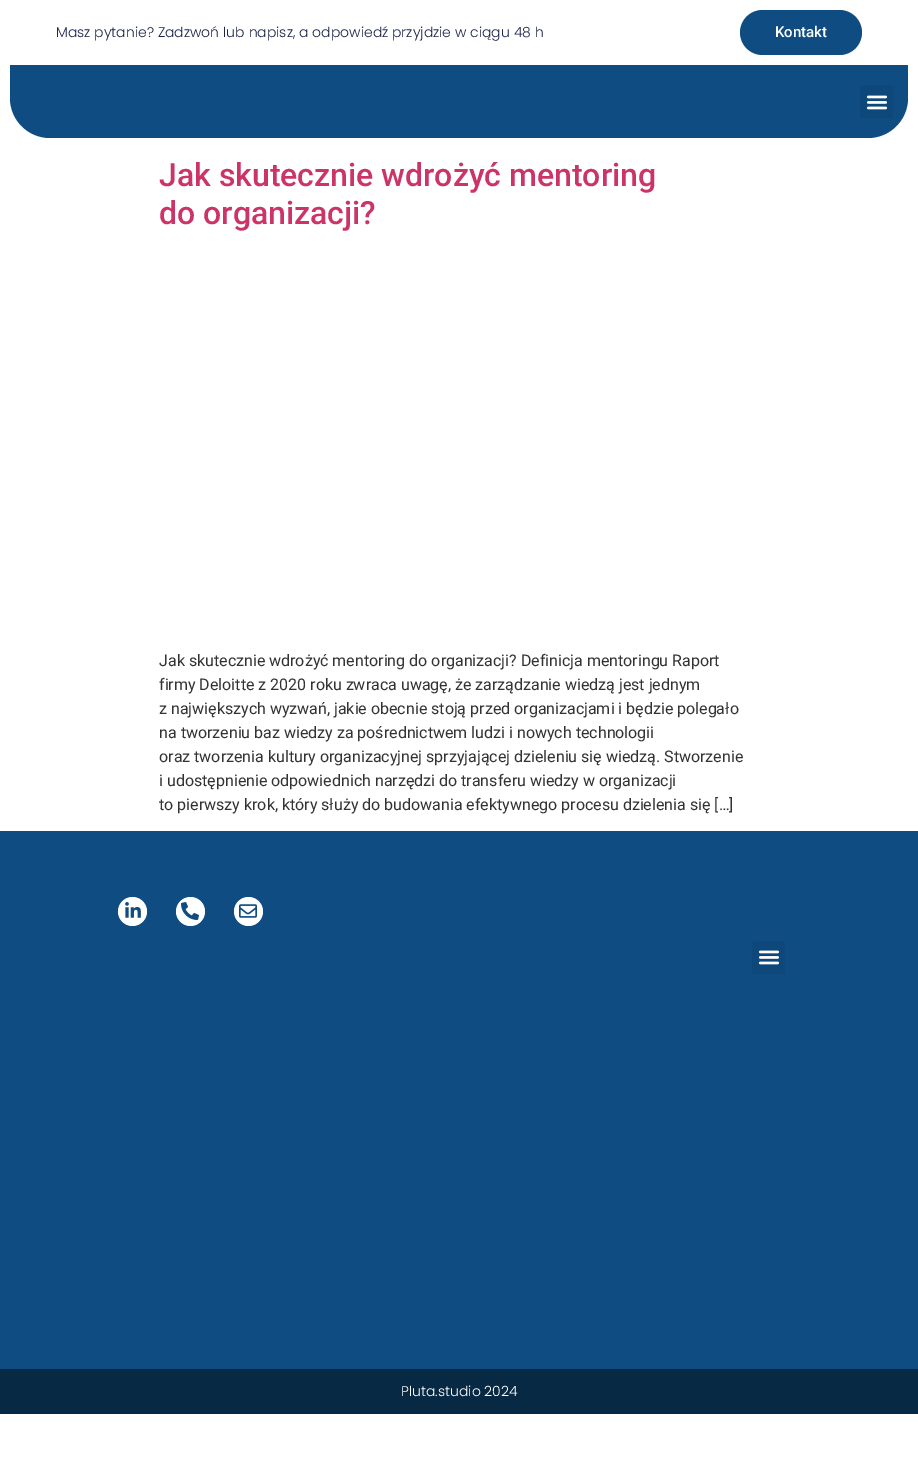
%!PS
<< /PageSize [918 1477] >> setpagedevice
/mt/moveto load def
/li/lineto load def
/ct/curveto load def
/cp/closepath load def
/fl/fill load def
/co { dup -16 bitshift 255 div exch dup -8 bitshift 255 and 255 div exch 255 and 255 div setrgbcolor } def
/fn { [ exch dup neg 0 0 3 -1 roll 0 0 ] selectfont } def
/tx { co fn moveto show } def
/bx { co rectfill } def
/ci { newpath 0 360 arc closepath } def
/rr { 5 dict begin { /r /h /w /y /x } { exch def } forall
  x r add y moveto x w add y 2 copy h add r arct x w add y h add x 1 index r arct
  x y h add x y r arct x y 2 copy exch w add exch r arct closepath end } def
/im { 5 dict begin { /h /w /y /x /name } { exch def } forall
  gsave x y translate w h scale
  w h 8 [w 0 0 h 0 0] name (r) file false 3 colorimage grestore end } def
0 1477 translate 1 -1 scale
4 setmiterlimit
0 0 918 1477 16#FFFFFF bx
16#0F4C81 co
740 10 122 45 22.5 rr fl
10 65 mt 908 65 li 908 98 li 908 120 890 138 868 138 ct 50 138 li 28 138 10 120 10 98 ct cp fl
16#0E487B co
860 85 33 33 3 rr fl
(media/1.raw) 866 95 22 15 im
0 831 918 538 16#0F4C81 bx
16#FFFFFF co
132.5 911.5 14.5 ci fl
(media/2.raw) 125 902 16 16 im
190.5 911.5 14.5 ci fl
(media/3.raw) 181 902 18 18 im
248.5 911.5 14.5 ci fl
(media/4.raw) 239 904 18 14 im
16#0E487B co
752 941 33 33 3 rr fl
(media/1.raw) 758 950 22 15 im
0 1369 918 45 16#082944 bx
(Masz pytanie? Zadzwoń lub napisz, a odpowiedź przyjdzie w ciągu 48 h) 56 37 /Poppins-Light 14 16#1C244B tx
(Kontakt) 775 37 /Roboto-Medium 15 16#FFFFFF tx
(Jak skutecznie wdrożyć mentoring) 159 186 /Roboto-Medium 32 16#CC3366 tx
(do organizacji?) 159 224 /Roboto-Medium 32 16#CC3366 tx
(Jak skutecznie wdrożyć mentoring do organizacji? Definicja mentoringu Raport) 159 666 /Roboto-Regular 16 16#333333 tx
(firmy Deloitte z 2020 roku zwraca uwagę, że zarządzanie wiedzą jest jednym) 159 690 /Roboto-Regular 16 16#333333 tx
(z największych wyzwań, jakie obecnie stoją przed organizacjami i będzie polegało) 159 714 /Roboto-Regular 16 16#333333 tx
(na tworzeniu baz wiedzy za pośrednictwem ludzi i nowych technologii) 159 738 /Roboto-Regular 16 16#333333 tx
(oraz tworzenia kultury organizacyjnej sprzyjającej dzieleniu się wiedzą. Stworzenie) 159 762 /Roboto-Regular 16 16#333333 tx
(i udostępnienie odpowiednich narzędzi do transferu wiedzy w organizacji) 159 786 /Roboto-Regular 16 16#333333 tx
(to pierwszy krok, który służy do budowania efektywnego procesu dzielenia się […]) 159 810 /Roboto-Regular 16 16#333333 tx
(Pluta.studio 2024) 401 1396 /Poppins-Light 14 16#FFFFFF tx
showpage
